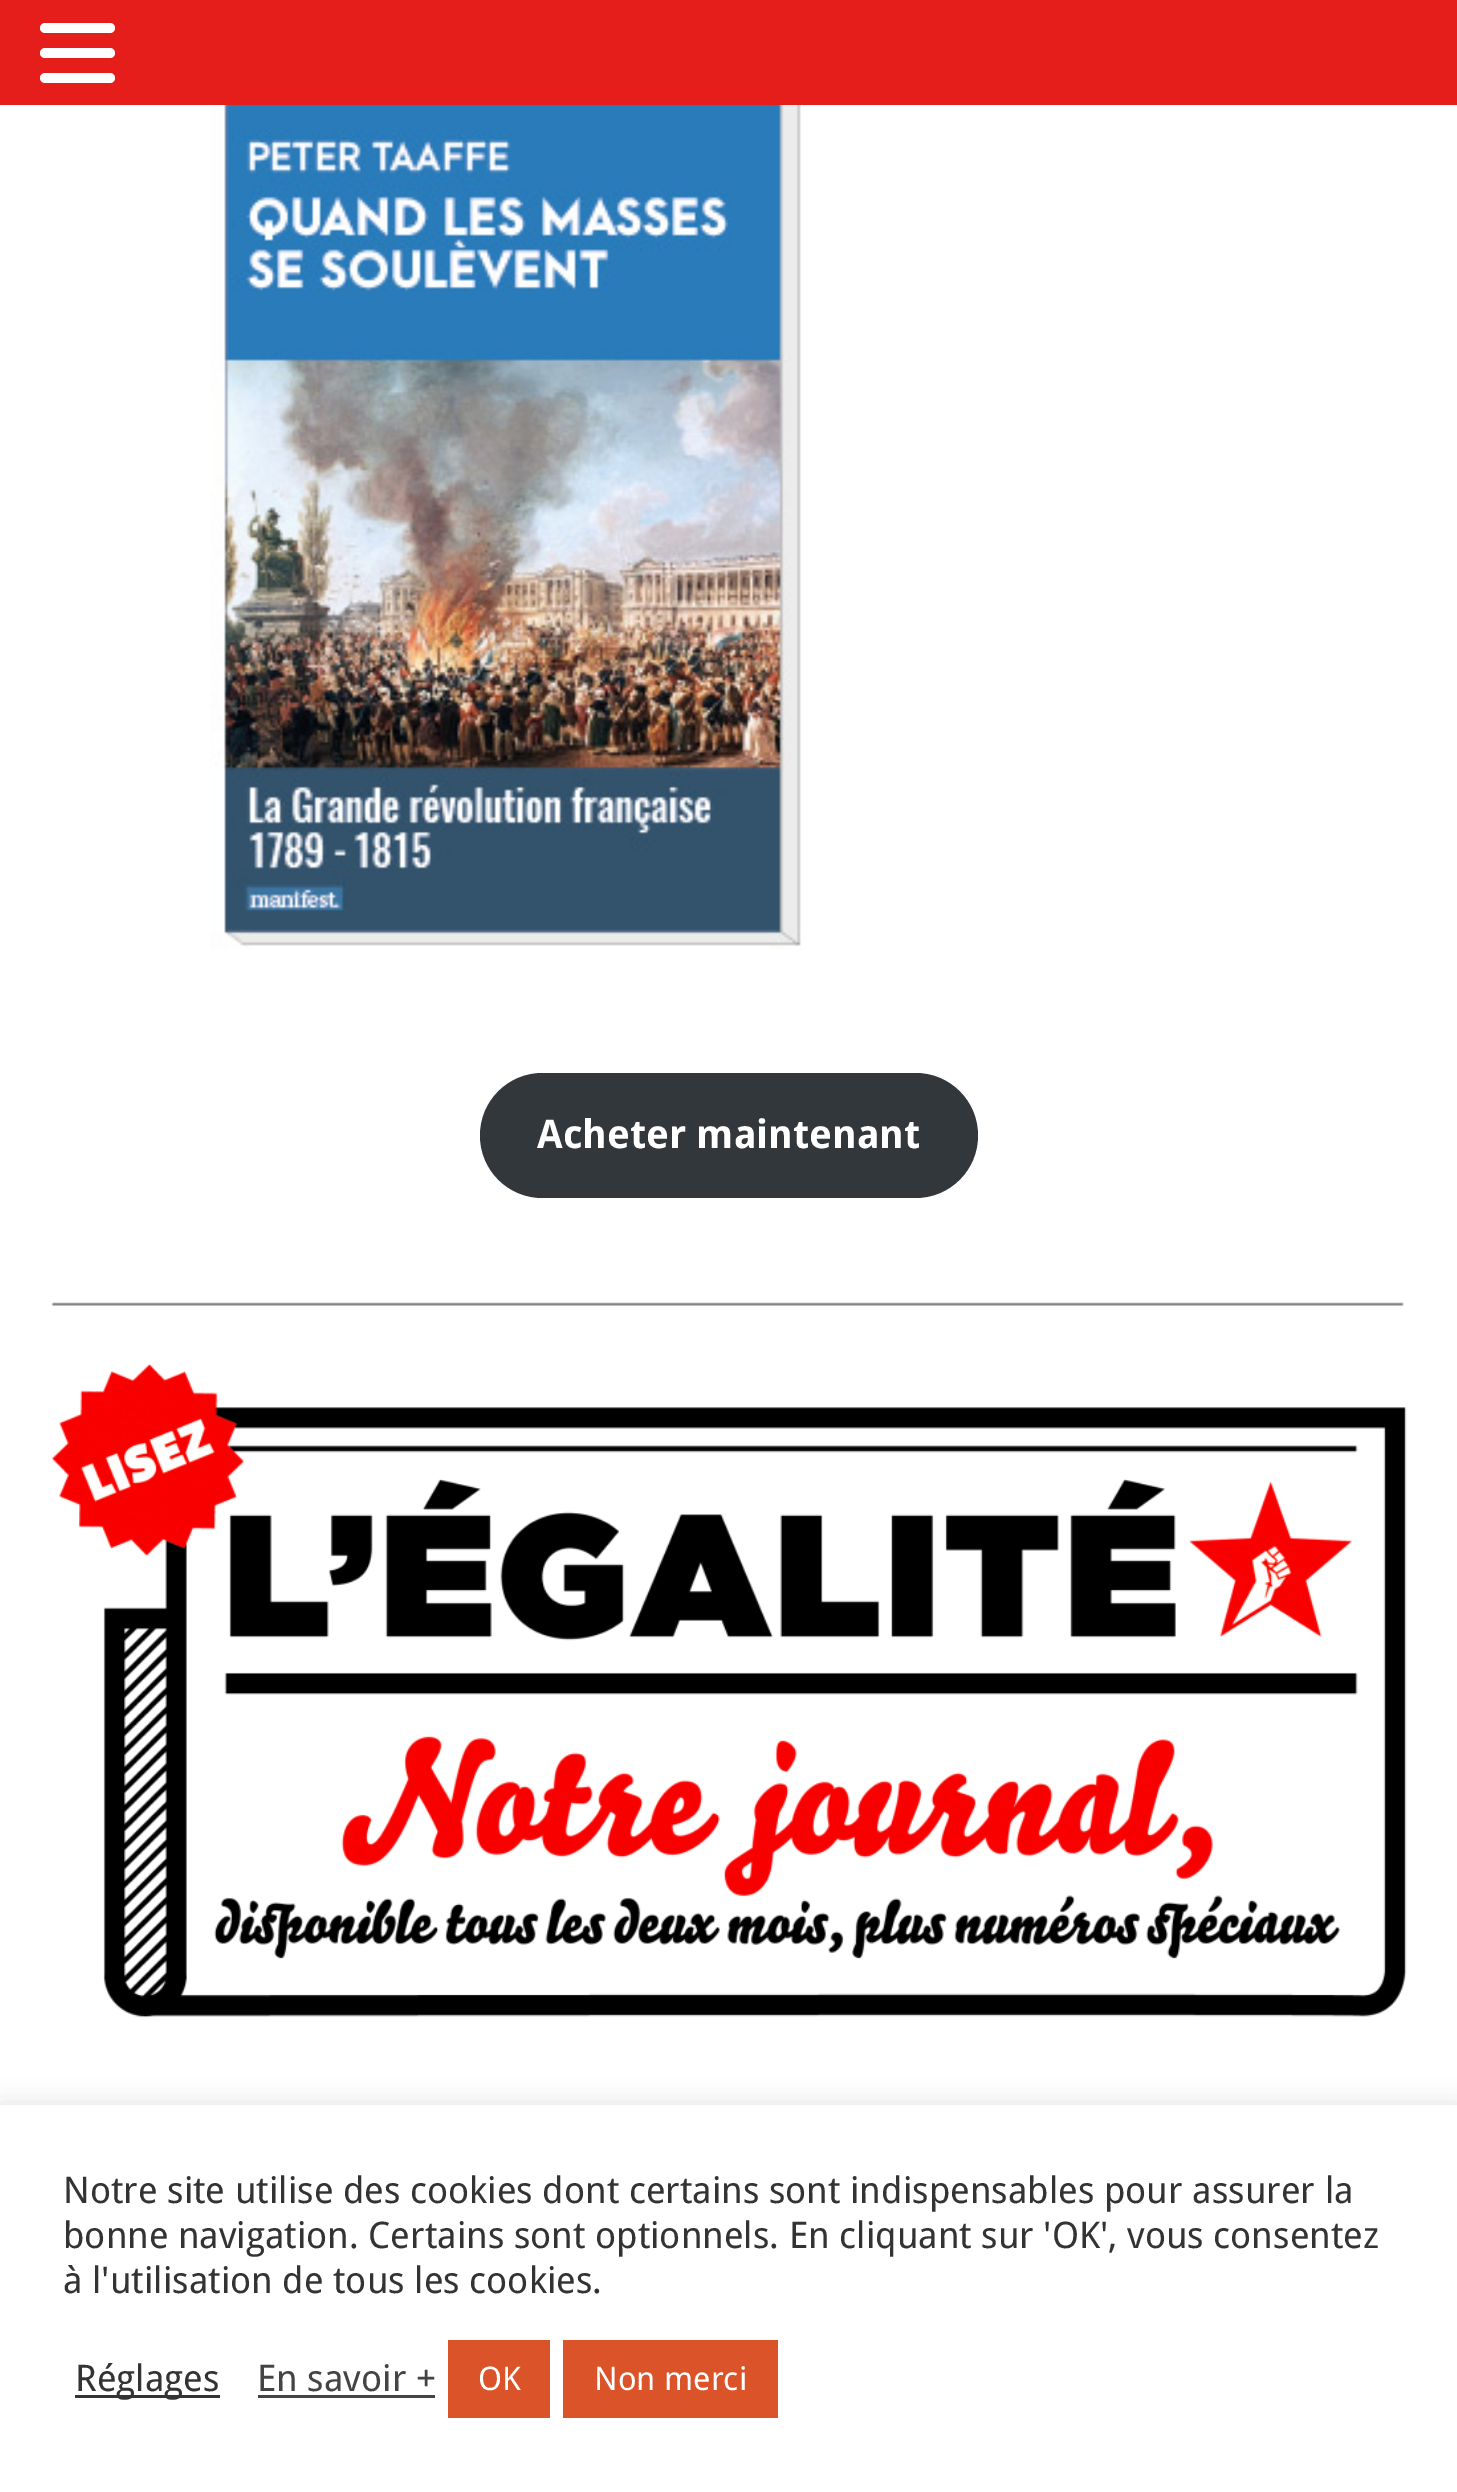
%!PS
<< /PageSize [1457 2492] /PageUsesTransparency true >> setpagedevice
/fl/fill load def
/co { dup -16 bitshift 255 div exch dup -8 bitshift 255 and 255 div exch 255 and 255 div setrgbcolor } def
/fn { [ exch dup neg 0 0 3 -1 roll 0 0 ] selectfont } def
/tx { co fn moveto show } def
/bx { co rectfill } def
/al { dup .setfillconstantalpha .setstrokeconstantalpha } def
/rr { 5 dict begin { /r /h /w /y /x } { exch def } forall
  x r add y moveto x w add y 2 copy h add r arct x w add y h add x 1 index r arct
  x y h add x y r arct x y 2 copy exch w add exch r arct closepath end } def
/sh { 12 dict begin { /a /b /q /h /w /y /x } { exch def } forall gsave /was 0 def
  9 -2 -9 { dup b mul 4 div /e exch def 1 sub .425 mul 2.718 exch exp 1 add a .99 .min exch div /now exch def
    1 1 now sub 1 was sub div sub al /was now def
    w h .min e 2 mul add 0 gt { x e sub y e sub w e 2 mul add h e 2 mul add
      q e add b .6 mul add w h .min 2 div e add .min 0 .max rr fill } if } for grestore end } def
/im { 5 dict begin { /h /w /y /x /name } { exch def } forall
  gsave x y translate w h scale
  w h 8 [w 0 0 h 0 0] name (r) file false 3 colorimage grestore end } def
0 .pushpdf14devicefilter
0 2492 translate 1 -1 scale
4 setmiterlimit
0 0 1457 2492 16#FFFFFF bx
0 0 1457 105 16#E51E1B bx
16#FFFFFF co
40 48 75 10 5 rr fl
40 23 75 10 5 rr fl
40 73 75 10 5 rr fl
(media/1.raw) 210 105 592 845 im
16#32373C co
480 1073 498 125 62.5 rr fl
(media/2.raw) 51 1302 1356 716 im
16#ACABAB co
0 2103 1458 387 0 12.5 .3 sh
0 2105 1457 387 16#FFFFFF bx
75 2395 145 3 16#333333 bx
258 2395 177 3 16#444444 bx
448 2340 102 78 16#DB5329 bx
563 2340 215 78 16#DB5329 bx
(Acheter maintenant) 537 1148 /DroidSans-Bold 39.4 16#FFFFFF tx
(Notre site utilise des cookies dont certains sont indispensables pour assurer la) 63 2203 /DroidSans-Regular 36.65 16#333333 tx
(bonne navigation. Certains sont optionnels. En cliquant sur 'OK', vous consentez) 63 2248 /DroidSans-Regular 36.65 16#333333 tx
(à l'utilisation de tous les cookies.) 63 2293 /DroidSans-Regular 36.65 16#333333 tx
(Réglages) 75 2391 /DroidSans-Regular 36.65 16#333333 tx
(En savoir +) 257 2391 /DroidSans-Regular 36.65 16#444444 tx
(OK) 478 2390 /DroidSans-Regular 32.5 16#FFFFFF tx
(Non merci) 594 2390 /DroidSans-Regular 32.5 16#FFFFFF tx
.poppdf14devicefilter showpage
